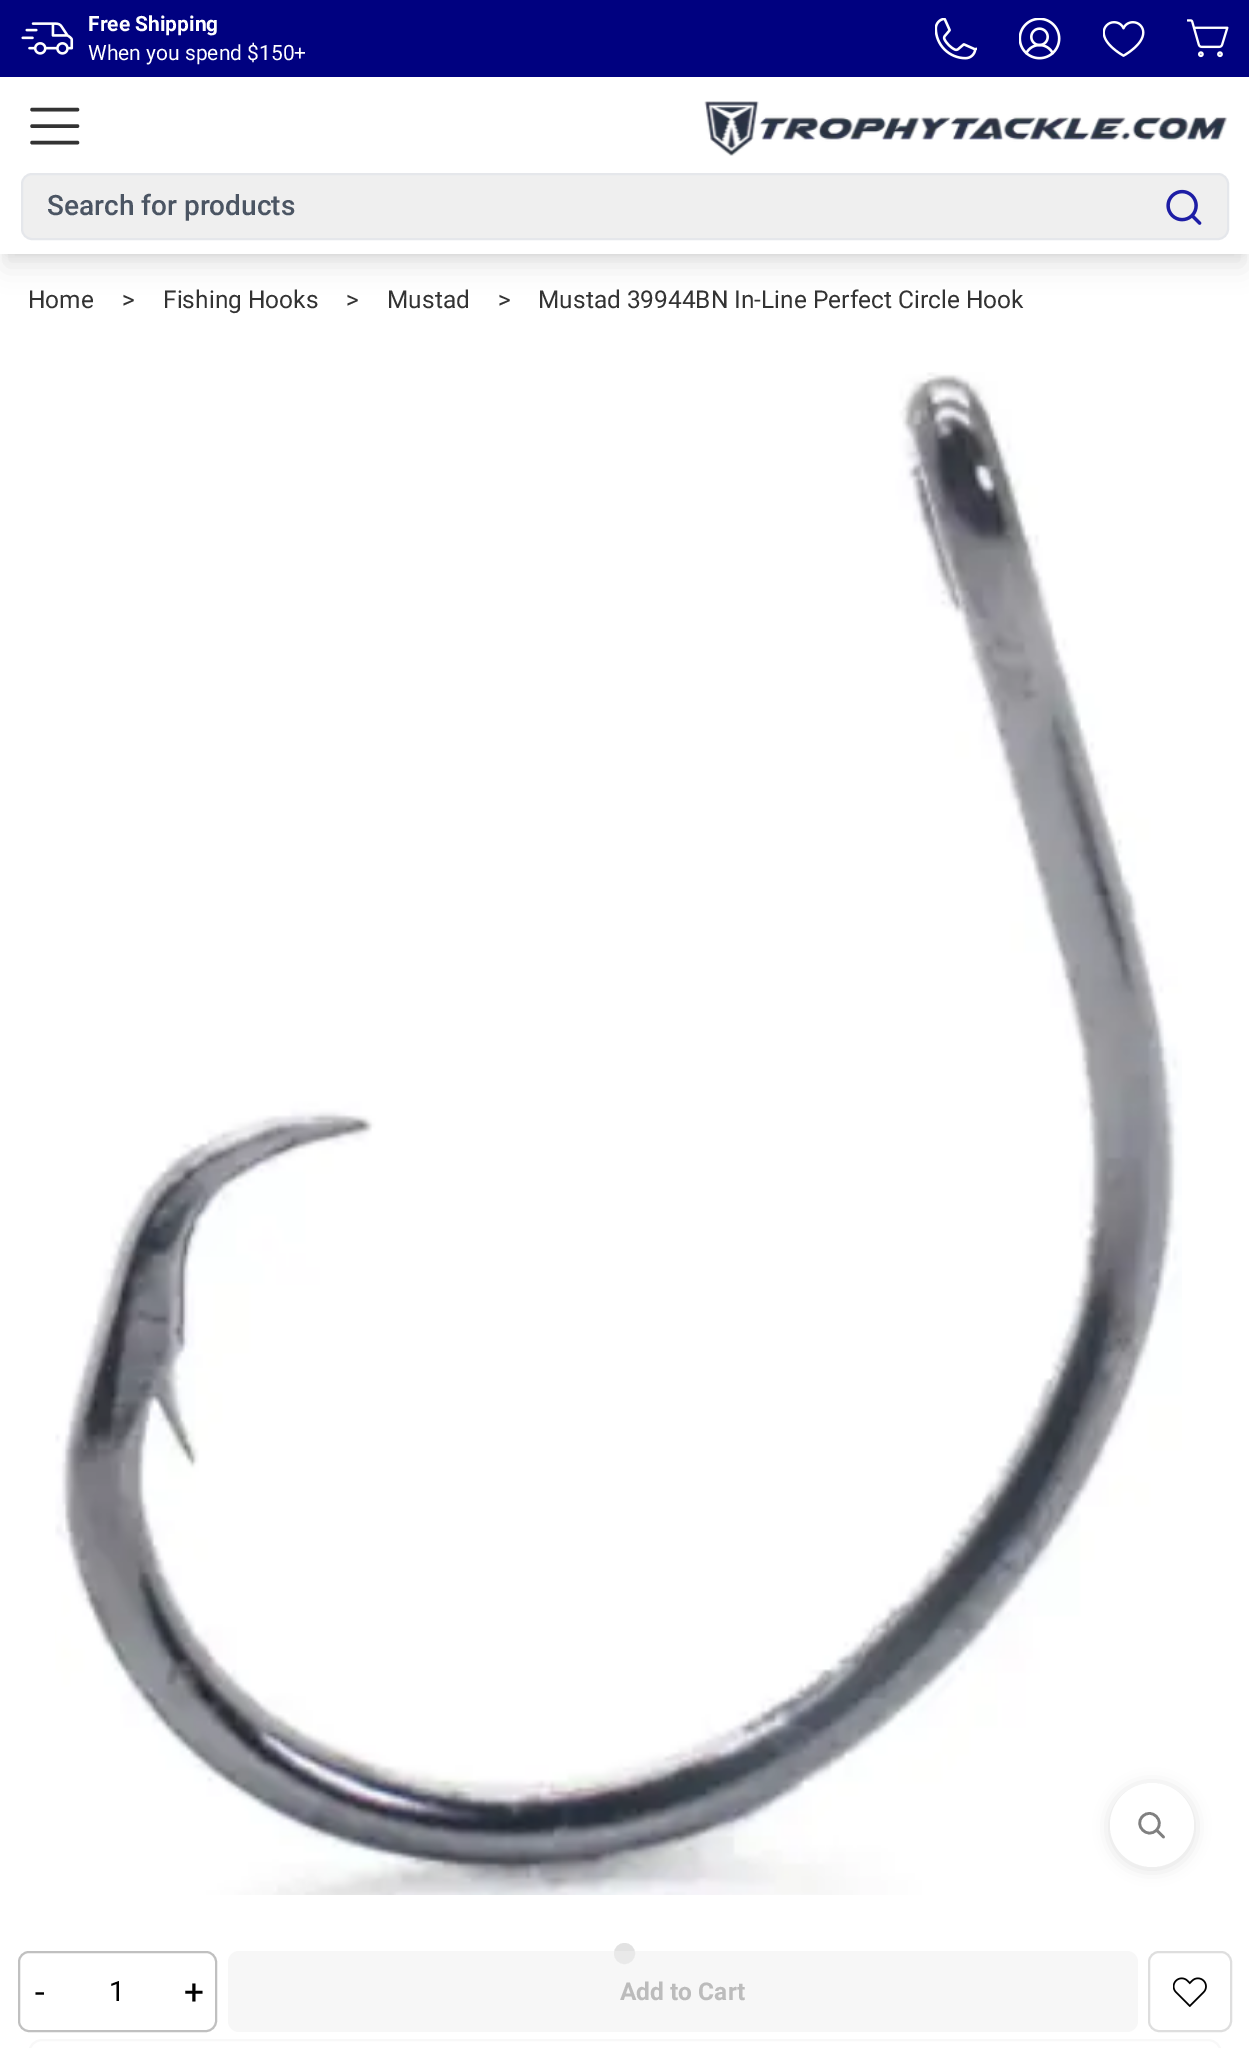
%!PS
<< /PageSize [1249 2048] /PageUsesTransparency true >> setpagedevice
/mt/moveto load def
/li/lineto load def
/ct/curveto load def
/cp/closepath load def
/fl/fill load def
/st/stroke load def
/gs/gsave load def
/gr/grestore load def
/lw/setlinewidth load def
/co { dup -16 bitshift 255 div exch dup -8 bitshift 255 and 255 div exch 255 and 255 div setrgbcolor } def
/fn { [ exch dup neg 0 0 3 -1 roll 0 0 ] selectfont } def
/tx { co fn moveto show } def
/bx { co rectfill } def
/al { dup .setfillconstantalpha .setstrokeconstantalpha } def
/ci { newpath 0 360 arc closepath } def
/rr { 5 dict begin { /r /h /w /y /x } { exch def } forall
  x r add y moveto x w add y 2 copy h add r arct x w add y h add x 1 index r arct
  x y h add x y r arct x y 2 copy exch w add exch r arct closepath end } def
/sh { 12 dict begin { /a /b /q /h /w /y /x } { exch def } forall gsave /was 0 def
  9 -2 -9 { dup b mul 4 div /e exch def 1 sub .425 mul 2.718 exch exp 1 add a .99 .min exch div /now exch def
    1 1 now sub 1 was sub div sub al /was now def
    w h .min e 2 mul add 0 gt { x e sub y e sub w e 2 mul add h e 2 mul add
      q e add b .6 mul add w h .min 2 div e add .min 0 .max rr fill } if } for grestore end } def
/im { 5 dict begin { /h /w /y /x /name } { exch def } forall
  gsave x y translate w h scale
  w h 8 [w 0 0 h 0 0] name (r) file false 3 colorimage grestore end } def
0 .pushpdf14devicefilter
0 2048 translate 1 -1 scale
4 setmiterlimit
0 0 1249 2048 16#FFFFFF bx
16#000000 co
7 14 1236 240 0 5 .1 sh
5 23 1239 243 0 13 .1 sh
0 77 1249 177 16#FFFFFF bx
0 0 1249 77 16#000180 bx
(media/1.raw) 21 22 53 33 im
(media/2.raw) 935 18 42 42 im
(media/3.raw) 1019 18 42 42 im
(media/4.raw) 1103 21 42 36 im
(media/5.raw) 1187 19 42 39 im
16#333333 co
3.5 lw
1 setlinecap
1 setlinejoin
32 126 mt 77.5 126 li 32 109.5 mt 77.5 109.5 li 32 142.5 mt 77.5 142.5 li st
(media/6.raw) 704 101 524 55 im
16#EFEFEF co
22 174 1206 65 10 rr gs fl gr
16#E5E7EB co
2 lw
0 setlinecap
0 setlinejoin
st
(media/7.raw) 1166 189 36 36 im
(media/8.raw) 55 372 1127 1523 im
16#000000 co
1110 1785 84 84 42 8 .12 sh
16#FFFFFF co
1152 1825 42 ci fl
16#808080 co
2.6 lw
1 setlinecap
1 setlinejoin
1163.5 1837 mt 1156.5 1830 li 1156.5 1830 mt 1165.5 1821 1151.5 1807 1142.5 1816.5 ct 1133.5 1825.5 1147.5 1839.5 1156.5 1830 ct cp st
16#E2E2E2 co
624.5 1953.5 9.5 ci gs fl gr
2 lw
0 setlinecap
0 setlinejoin
st
16#F8F8F8 co
29 2040 1192 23 13 rr st
16#C0C0C0 co
19 1952 197 79 10 rr st
0.5 al
16#F0F0F0 co
228 1951 910 81 11 rr fl
1 al
16#DEDEDE co
1149 1952 82 79 10 rr st
(media/9.raw) 1173 1977 34 30 im
(Free Shipping) 88 31 /Roboto-Bold 21 16#FFFFFF tx
(When you spend $150+) 88 60 /Roboto-Regular 21 16#FFFFFF tx
(Search for products) 47 215 /Roboto-Medium 28 16#4B5563 tx
(Home) 28 308 /Roboto-Regular 24.5 16#333333 tx
(>) 122 308 /Roboto-Regular 24.5 16#333333 tx
(Fishing Hooks) 163 308 /Roboto-Regular 24.5 16#333333 tx
(>) 346 308 /Roboto-Regular 24.5 16#333333 tx
(Mustad) 387 308 /Roboto-Regular 24.5 16#333333 tx
(>) 498 308 /Roboto-Regular 24.5 16#333333 tx
(Mustad 39944BN In-Line Perfect Circle Hook) 538 308 /Roboto-Regular 24.5 16#333333 tx
(-) 35 2004 /Roboto-Regular 35 16#000000 tx
(1) 109 2001 /Roboto-Regular 28 16#000000 tx
(+) 184 2004 /Roboto-Regular 35 16#000000 tx
(Add to Cart) 620 2000 /Roboto-Bold 24.5 16#BCBCBC tx
.poppdf14devicefilter showpage
